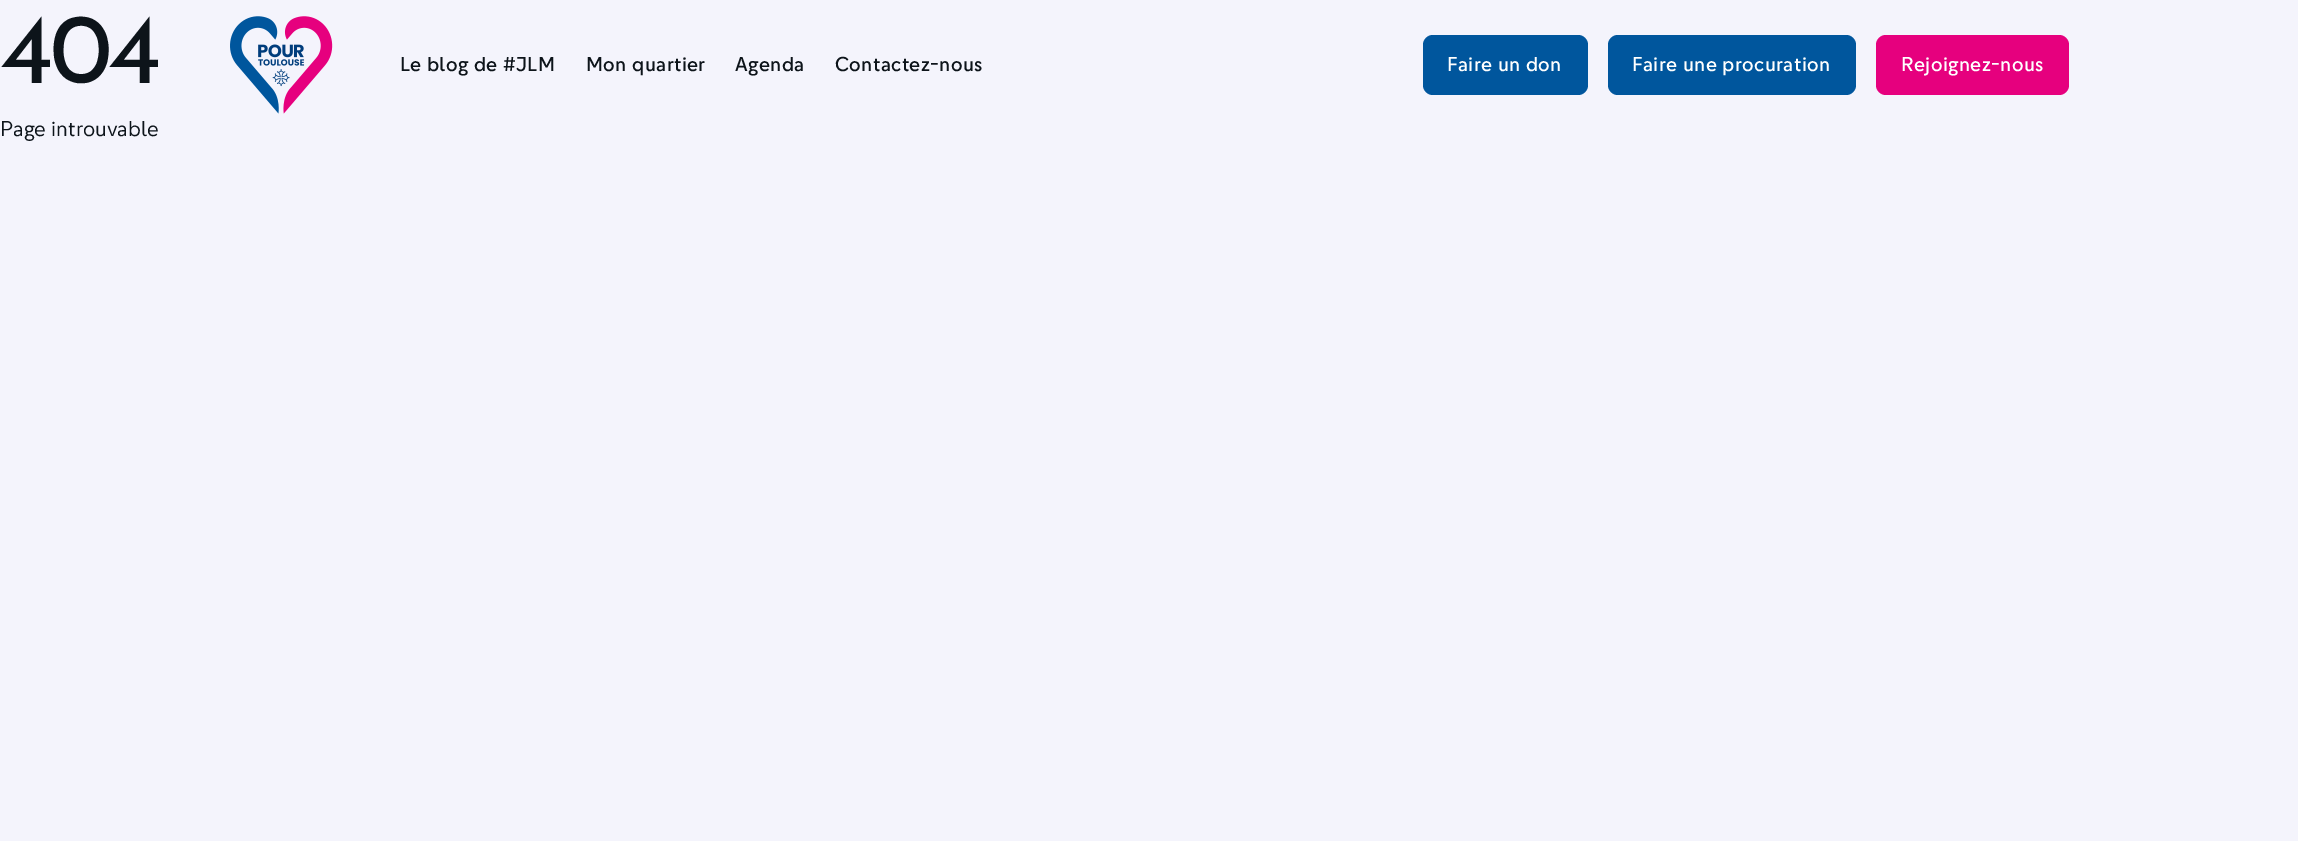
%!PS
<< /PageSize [2298 841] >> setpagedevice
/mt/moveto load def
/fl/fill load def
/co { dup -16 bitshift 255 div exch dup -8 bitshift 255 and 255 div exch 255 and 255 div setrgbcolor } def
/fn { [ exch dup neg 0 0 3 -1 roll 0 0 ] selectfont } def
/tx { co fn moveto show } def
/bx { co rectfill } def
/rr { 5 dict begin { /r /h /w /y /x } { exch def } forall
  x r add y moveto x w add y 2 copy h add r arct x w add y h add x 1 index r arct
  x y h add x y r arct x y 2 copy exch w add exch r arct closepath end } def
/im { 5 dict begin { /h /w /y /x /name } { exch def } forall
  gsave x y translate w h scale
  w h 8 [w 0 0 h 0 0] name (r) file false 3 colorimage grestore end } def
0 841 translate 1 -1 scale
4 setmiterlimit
0 0 2298 841 16#F4F4FC bx
(media/1.raw) 230 16 103 98 im
16#00569D co
1423 35 165 60 10 rr fl
1608 35 248 60 10 rr fl
16#E6007E co
1876 35 193 60 10 rr fl
/JosefinSans-Regular 100 fn
16#0D141A co
0 83 mt -4 0 (404) ashow
(Page introuvable) 0 136 /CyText-Regular 20 16#0D141A tx
/CyText-SemiBold 18.75 fn
400 71 mt .4 0 (Le blog de #JLM) ashow
586 71 mt .4 0 (Mon quartier) ashow
735 71 mt .4 0 (Agenda) ashow
835 71 mt .4 0 (Contactez-nous) ashow
16#FFFFFF co
1447 71 mt .4 0 (Faire un don) ashow
1632 71 mt .4 0 (Faire une procuration) ashow
1901 71 mt .4 0 (Rejoignez-nous) ashow
showpage
